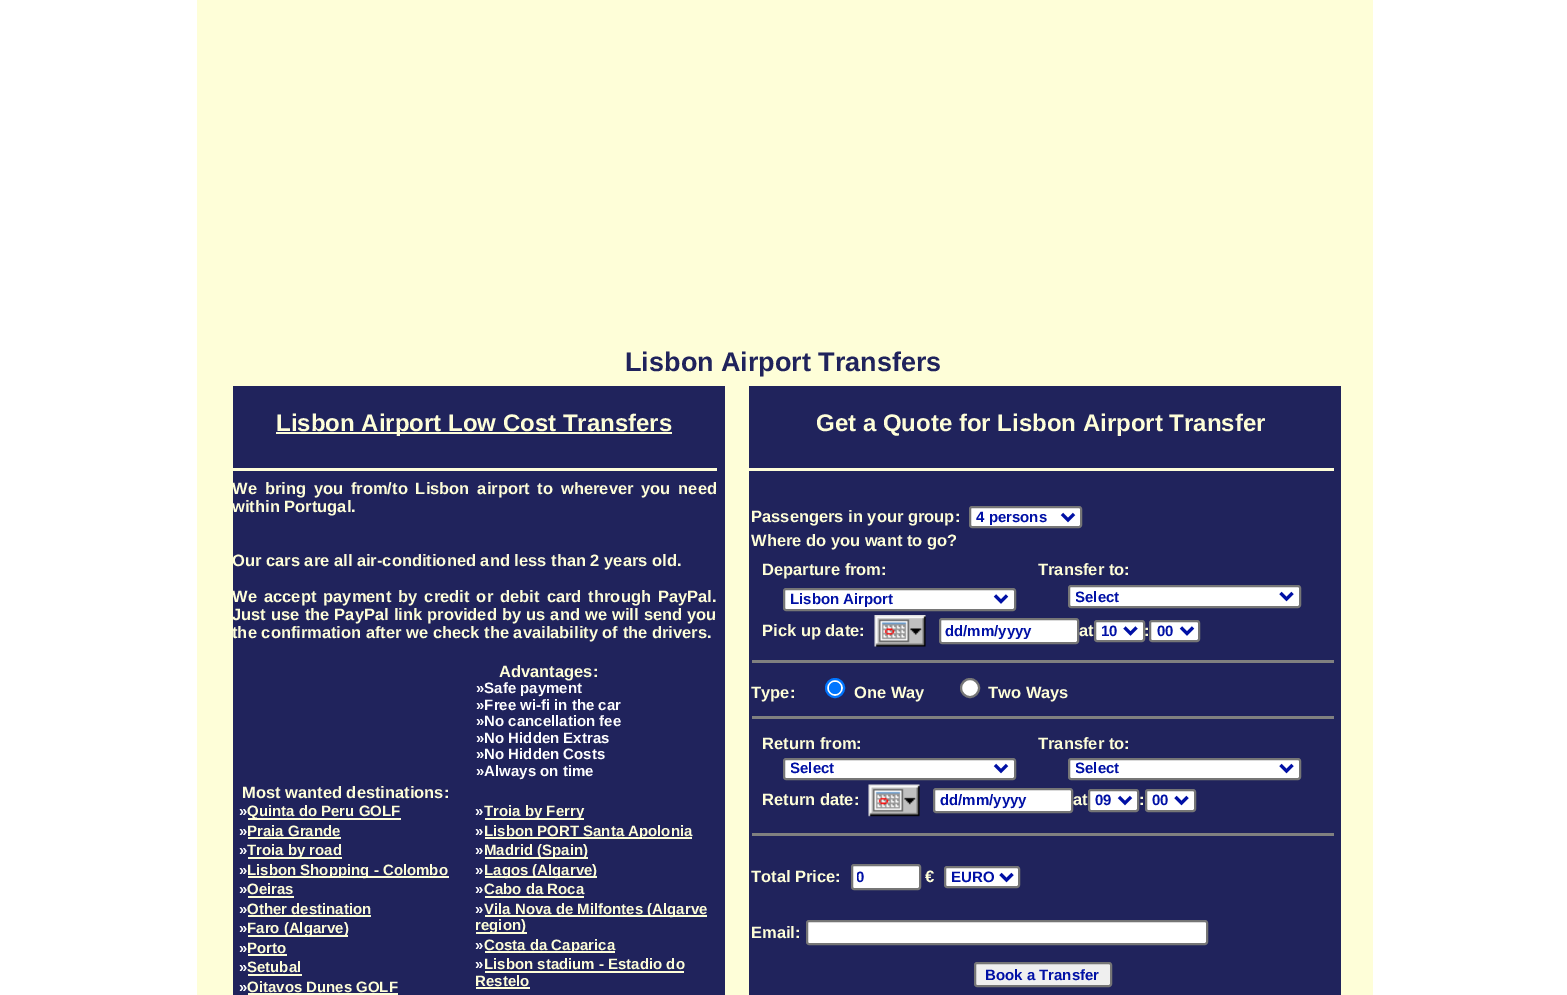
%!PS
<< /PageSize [1567 995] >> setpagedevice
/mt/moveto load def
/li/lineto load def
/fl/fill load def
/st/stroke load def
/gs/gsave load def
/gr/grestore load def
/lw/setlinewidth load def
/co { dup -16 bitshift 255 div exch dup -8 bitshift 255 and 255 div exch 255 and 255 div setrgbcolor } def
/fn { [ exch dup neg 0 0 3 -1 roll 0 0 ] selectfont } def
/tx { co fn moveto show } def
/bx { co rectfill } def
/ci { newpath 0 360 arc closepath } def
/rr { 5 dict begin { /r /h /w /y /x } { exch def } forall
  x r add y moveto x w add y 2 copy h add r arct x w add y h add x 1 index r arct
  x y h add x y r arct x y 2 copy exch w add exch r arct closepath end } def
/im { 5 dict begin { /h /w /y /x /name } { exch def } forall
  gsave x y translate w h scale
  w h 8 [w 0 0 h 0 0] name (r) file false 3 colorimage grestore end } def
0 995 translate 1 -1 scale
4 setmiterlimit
0 0 1567 995 16#FFFFFF bx
197 0 1176 995 16#FEFED8 bx
233 386 492 75 16#20235C bx
276 432 396 2 16#FEFED8 bx
233 461 492 7 16#20235C bx
717 468 8 3 16#20235C bx
233 471 492 8 16#20235C bx
233 479 492 516 16#20235C bx
248 818 153 2 16#FEFED8 bx
248 837 93 2 16#FEFED8 bx
248 857 94 2 16#FEFED8 bx
248 876 201 2 16#FEFED8 bx
248 896 46 2 16#FEFED8 bx
248 915 123 2 16#FEFED8 bx
248 935 100 2 16#FEFED8 bx
248 954 39 2 16#FEFED8 bx
248 974 54 2 16#FEFED8 bx
248 993 150 2 16#FEFED8 bx
485 818 99 2 16#FEFED8 bx
485 837 207 2 16#FEFED8 bx
485 857 103 2 16#FEFED8 bx
485 876 112 2 16#FEFED8 bx
485 896 99 2 16#FEFED8 bx
485 915 222 2 16#FEFED8 bx
476 932 51 2 16#FEFED8 bx
485 951 130 2 16#FEFED8 bx
485 971 199 2 16#FEFED8 bx
476 987 54 2 16#FEFED8 bx
749 386 592 75 16#20235C bx
749 461 592 7 16#20235C bx
1334 468 7 3 16#20235C bx
749 471 592 8 16#20235C bx
749 479 592 516 16#20235C bx
16#FFFFFF co
970 507 111 20 2 rr gs fl gr
16#767676 co
2 lw
st
16#0010A5 co
3 lw
1062 514 mt 1068 520 li 1074 514 li st
16#FFFFFF co
784 589 231 21 2 rr gs fl gr
16#767676 co
2 lw
st
16#0010A5 co
3 lw
995 595.5 mt 1001 601.5 li 1007 595.5 li st
16#FFFFFF co
1069 586 231 21 2 rr gs fl gr
16#767676 co
2 lw
st
16#0010A5 co
3 lw
1280.5 593 mt 1286.5 599 li 1292.5 593 li st
(media/1.raw) 874 615 52 32 im
16#FFFFFF co
940 619 138 24 2 rr gs fl gr
16#767676 co
2 lw
st
16#FFFFFF co
1095 621 49 20 2 rr gs fl gr
16#767676 co
st
16#0010A5 co
3 lw
1124.5 627.5 mt 1130.5 633.5 li 1136.5 627.5 li st
16#FFFFFF co
1150 621 49 20 2 rr gs fl gr
16#767676 co
2 lw
st
16#0010A5 co
3 lw
1181 627.5 mt 1187 633.5 li 1193 627.5 li st
752 660 582 3 16#808080 bx
16#FFFFFF co
835 688 9 ci gs fl gr
16#0075FF co
2 lw
st
835 688 6 ci fl
16#FFFFFF co
970 688 9 ci gs fl gr
16#767676 co
st
752 716 582 3 16#808080 bx
16#FFFFFF co
784 759 231 20 2 rr gs fl gr
16#767676 co
st
16#0010A5 co
3 lw
995 765 mt 1001 771 li 1007 765 li st
16#FFFFFF co
1069 759 231 20 2 rr gs fl gr
16#767676 co
2 lw
st
16#0010A5 co
3 lw
1280.5 765 mt 1286.5 771 li 1292.5 765 li st
(media/2.raw) 868 784 52 33 im
16#FFFFFF co
934 789 138 23 2 rr gs fl gr
16#767676 co
2 lw
st
16#FFFFFF co
1089 790 49 21 2 rr gs fl gr
16#767676 co
st
16#0010A5 co
3 lw
1119 797 mt 1125 803 li 1131 797 li st
16#FFFFFF co
1146 790 49 21 2 rr gs fl gr
16#767676 co
2 lw
st
16#0010A5 co
3 lw
1175.5 797 mt 1181.5 803 li 1187.5 797 li st
752 833 582 3 16#808080 bx
16#FFFFFF co
852 865 68 24 2 rr gs fl gr
16#767676 co
2 lw
st
16#FFFFFF co
945 867 74 20 2 rr gs fl gr
16#767676 co
st
16#0010A5 co
3 lw
1000.5 874 mt 1006.5 880 li 1012.5 874 li st
16#FFFFFF co
807 921 400 23 2 rr gs fl gr
16#767676 co
2 lw
st
16#EFEFEF co
975 963 136 23 2 rr gs fl gr
16#767676 co
st
(Lisbon Airport Transfers) 625 371 /LiberationSans-Bold 27 16#20235C tx
(Lisbon Airport Low Cost Transfers) 276 431 /LiberationSans-Bold 24 16#FEFED8 tx
/LiberationSans-Bold 16.5 fn
232 494 mt 3.25 0 32 (We bring you from/to Lisbon airport to wherever you need) widthshow
(within Portugal.) 232 512 /LiberationSans-Bold 16.5 16#FEFED8 tx
(Our cars are all air-conditioned and less than 2 years old.) 232 566 /LiberationSans-Bold 16.5 16#FEFED8 tx
232 602 mt 2.5 0 32 (We accept payment by credit or debit card through PayPal.) widthshow
232 620 mt .5 0 32 (Just use the PayPal link provided by us and we will send you) widthshow
(the confirmation after we check the availability of the drivers.) 232 638 /LiberationSans-Bold 16.5 16#FEFED8 tx
(Advantages:) 499 677 /LiberationSans-Bold 16.5 16#FEFED8 tx
(»Safe payment) 476 693 /LiberationSans-Bold 15 16#FFFFFF tx
(»Free wi-fi in the car) 476 710 /LiberationSans-Bold 15 16#FFFFFF tx
(»No cancellation fee) 476 726 /LiberationSans-Bold 15 16#FFFFFF tx
(»No Hidden Extras) 476 743 /LiberationSans-Bold 15 16#FFFFFF tx
(»No Hidden Costs) 476 759 /LiberationSans-Bold 15 16#FFFFFF tx
(»Always on time) 476 776 /LiberationSans-Bold 15 16#FFFFFF tx
(Most wanted destinations:) 242 798 /LiberationSans-Bold 16.5 16#FEFED8 tx
(») 239 816 /LiberationSans-Bold 15 16#FFFFFF tx
(Quinta do Peru GOLF) 247 816 /LiberationSans-Bold 15 16#FEFED8 tx
(») 239 836 /LiberationSans-Bold 15 16#FFFFFF tx
(Praia Grande) 247 836 /LiberationSans-Bold 15 16#FEFED8 tx
(») 239 855 /LiberationSans-Bold 15 16#FFFFFF tx
(Troia by road) 247 855 /LiberationSans-Bold 15 16#FEFED8 tx
(») 239 875 /LiberationSans-Bold 15 16#FFFFFF tx
(Lisbon Shopping - Colombo) 247 875 /LiberationSans-Bold 15 16#FEFED8 tx
(») 239 894 /LiberationSans-Bold 15 16#FFFFFF tx
(Oeiras) 247 894 /LiberationSans-Bold 15 16#FEFED8 tx
(») 239 914 /LiberationSans-Bold 15 16#FFFFFF tx
(Other destination) 247 914 /LiberationSans-Bold 15 16#FEFED8 tx
(») 239 933 /LiberationSans-Bold 15 16#FFFFFF tx
(Faro \(Algarve\)) 247 933 /LiberationSans-Bold 15 16#FEFED8 tx
(») 239 953 /LiberationSans-Bold 15 16#FFFFFF tx
(Porto) 247 953 /LiberationSans-Bold 15 16#FEFED8 tx
(») 239 972 /LiberationSans-Bold 15 16#FFFFFF tx
(Setubal) 247 972 /LiberationSans-Bold 15 16#FEFED8 tx
(») 239 992 /LiberationSans-Bold 15 16#FFFFFF tx
(Oitavos Dunes GOLF) 247 992 /LiberationSans-Bold 15 16#FEFED8 tx
(») 475 816 /LiberationSans-Bold 15 16#FFFFFF tx
(Troia by Ferry) 484 816 /LiberationSans-Bold 15 16#FEFED8 tx
(») 475 836 /LiberationSans-Bold 15 16#FFFFFF tx
(Lisbon PORT Santa Apolonia) 484 836 /LiberationSans-Bold 15 16#FEFED8 tx
(») 475 855 /LiberationSans-Bold 15 16#FFFFFF tx
(Madrid \(Spain\)) 484 855 /LiberationSans-Bold 15 16#FEFED8 tx
(») 475 875 /LiberationSans-Bold 15 16#FFFFFF tx
(Lagos \(Algarve\)) 484 875 /LiberationSans-Bold 15 16#FEFED8 tx
(») 475 894 /LiberationSans-Bold 15 16#FFFFFF tx
(Cabo da Roca) 484 894 /LiberationSans-Bold 15 16#FEFED8 tx
(») 475 914 /LiberationSans-Bold 15 16#FFFFFF tx
(Vila Nova de Milfontes \(Algarve) 484 914 /LiberationSans-Bold 15 16#FEFED8 tx
(region\)) 475 930 /LiberationSans-Bold 15 16#FEFED8 tx
(») 475 950 /LiberationSans-Bold 15 16#FFFFFF tx
(Costa da Caparica) 484 950 /LiberationSans-Bold 15 16#FEFED8 tx
(») 475 969 /LiberationSans-Bold 15 16#FFFFFF tx
(Lisbon stadium - Estadio do) 484 969 /LiberationSans-Bold 15 16#FEFED8 tx
(Restelo) 475 986 /LiberationSans-Bold 15 16#FEFED8 tx
(Get a Quote for Lisbon Airport Transfer) 816 431 /LiberationSans-Bold 24 16#FEFED8 tx
(Passengers in your group:) 751 522 /LiberationSans-Bold 16.5 16#FEFED8 tx
(4 persons) 976 522 /LiberationSans-Bold 15 16#0010A5 tx
(Where do you want to go?) 751 546 /LiberationSans-Bold 16.5 16#FEFED8 tx
(Departure from:) 762 575 /LiberationSans-Bold 16.5 16#FEFED8 tx
(Transfer to:) 1038 575 /LiberationSans-Bold 16.5 16#FEFED8 tx
gs
791 590 199 19 rectclip
(Lisbon Airport) 790 604 /LiberationSans-Bold 15 16#0010A5 tx
gr
gs
1076 587 199 19 rectclip
(Select) 1075 602 /LiberationSans-Bold 15 16#0010A5 tx
gr
(Pick up date:) 762 636 /LiberationSans-Bold 16.5 16#FEFED8 tx
gs
945 623 128 16 rectclip
(dd/mm/yyyy) 945 636 /LiberationSans-Bold 15 16#0010A5 tx
gr
(at) 1079 636 /LiberationSans-Bold 16.5 16#FEFED8 tx
(10) 1101 636 /LiberationSans-Bold 15 16#0010A5 tx
(:) 1144 636 /LiberationSans-Bold 16.5 16#FEFED8 tx
(00) 1157 636 /LiberationSans-Bold 15 16#0010A5 tx
(Type:) 751 698 /LiberationSans-Bold 16.5 16#FEFED8 tx
(One Way) 854 698 /LiberationSans-Bold 16.5 16#FEFED8 tx
(Two Ways) 988 698 /LiberationSans-Bold 16.5 16#FEFED8 tx
(Return from:) 762 749 /LiberationSans-Bold 16.5 16#FEFED8 tx
(Transfer to:) 1038 749 /LiberationSans-Bold 16.5 16#FEFED8 tx
gs
791 759 199 20 rectclip
(Select) 790 773 /LiberationSans-Bold 15 16#0010A5 tx
gr
gs
1076 759 199 20 rectclip
(Select) 1075 773 /LiberationSans-Bold 15 16#0010A5 tx
gr
(Return date:) 762 805 /LiberationSans-Bold 16.5 16#FEFED8 tx
(dd/mm/yyyy) 940 805 /LiberationSans-Bold 15 16#0010A5 tx
(at) 1073 805 /LiberationSans-Bold 16.5 16#FEFED8 tx
(09) 1095 805 /LiberationSans-Bold 15 16#0010A5 tx
(:) 1139 805 /LiberationSans-Bold 16.5 16#FEFED8 tx
(00) 1152 805 /LiberationSans-Bold 15 16#0010A5 tx
(Total Price:) 751 882 /LiberationSans-Bold 16.5 16#FEFED8 tx
gs
857 869 58 16 rectclip
(0) 856 882 /LiberationSans-Bold 15 16#0010A5 tx
gr
(€) 925 882 /LiberationSans-Bold 16.5 16#FEFED8 tx
(EURO) 951 882 /LiberationSans-Bold 15 16#0010A5 tx
(Email:) 751 938 /LiberationSans-Bold 16.5 16#FEFED8 tx
(Book a Transfer) 985 980 /LiberationSans-Bold 15 16#0010A5 tx
showpage
